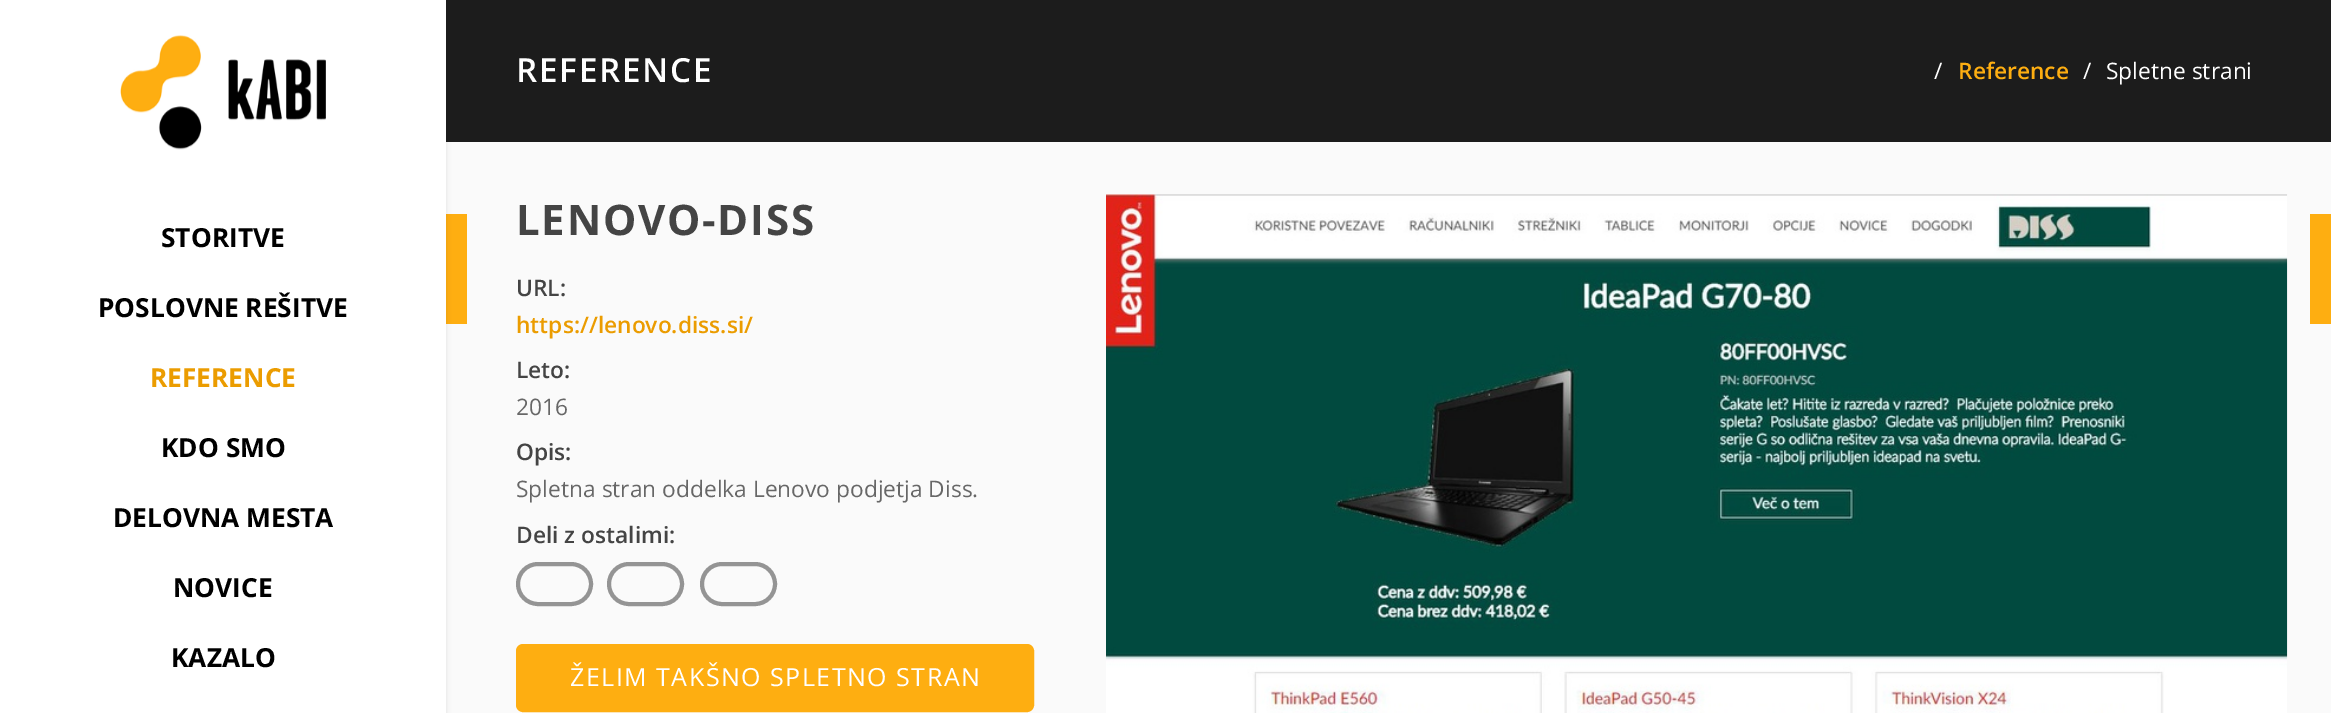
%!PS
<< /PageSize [2331 713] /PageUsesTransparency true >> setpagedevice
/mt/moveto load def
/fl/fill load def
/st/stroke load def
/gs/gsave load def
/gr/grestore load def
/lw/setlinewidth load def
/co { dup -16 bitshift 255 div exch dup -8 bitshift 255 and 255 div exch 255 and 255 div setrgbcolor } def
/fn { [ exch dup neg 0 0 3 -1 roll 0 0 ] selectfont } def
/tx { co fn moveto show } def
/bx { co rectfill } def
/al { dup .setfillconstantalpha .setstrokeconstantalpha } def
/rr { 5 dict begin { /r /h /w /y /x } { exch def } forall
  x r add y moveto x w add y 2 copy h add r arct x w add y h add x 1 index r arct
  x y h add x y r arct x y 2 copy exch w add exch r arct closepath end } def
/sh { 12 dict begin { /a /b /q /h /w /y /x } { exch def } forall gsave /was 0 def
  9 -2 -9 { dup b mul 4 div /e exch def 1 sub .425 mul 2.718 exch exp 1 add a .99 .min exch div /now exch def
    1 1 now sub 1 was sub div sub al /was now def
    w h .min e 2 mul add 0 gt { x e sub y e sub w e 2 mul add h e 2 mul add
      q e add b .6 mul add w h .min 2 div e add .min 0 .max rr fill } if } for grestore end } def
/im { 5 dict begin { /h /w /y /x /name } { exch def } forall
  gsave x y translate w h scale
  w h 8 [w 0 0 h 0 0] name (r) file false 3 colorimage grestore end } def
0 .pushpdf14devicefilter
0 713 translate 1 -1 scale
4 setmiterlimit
0 0 2331 713 16#FAFAFA bx
446 0 1885 142 16#1C1C1C bx
446 214 21 110 16#FEAE11 bx
16#000000 co
0 0 446 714 0 2.5 .1 sh
0 0 446 713 16#FFFFFF bx
(media/1.raw) 120 35 206 115 im
16#949494 co
4 lw
518 564 73 40 20 rr st
609 564 73 40 20 rr st
702 564 73 40 20 rr st
16#FEAE11 co
518 646 514 64 5 rr gs fl gr
st
(media/2.raw) 1106 194 1182 519 im
2310 214 21 110 16#FEAE11 bx
(STORITVE) 161 247 /OpenSans-Bold 26.25 16#000000 tx
(POSLOVNE REŠITVE) 98 317 /OpenSans-Bold 26.25 16#000000 tx
(REFERENCE) 150 387 /OpenSans-Bold 26.25 16#EB9C00 tx
(KDO SMO) 161 457 /OpenSans-Bold 26.25 16#000000 tx
(DELOVNA MESTA) 113 527 /OpenSans-Bold 26.25 16#000000 tx
(NOVICE) 173 597 /OpenSans-Bold 26.25 16#000000 tx
(KAZALO) 171 667 /OpenSans-Bold 26.25 16#000000 tx
/OpenSans-SemiBold 33.25 fn
16#FFFFFF co
516 82 mt 1.75 0 (REFERENCE) ashow
(/) 1934 79 /OpenSans-Regular 22.75 16#FFFFFF tx
(Reference) 1958 79 /OpenSans-SemiBold 22.75 16#FEAE11 tx
(/) 2083 79 /OpenSans-Regular 22.75 16#FFFFFF tx
(Spletne strani) 2106 79 /OpenSans-Regular 22.75 16#FFFFFF tx
/OpenSans-Bold 42 fn
16#444444 co
516 235 mt 1.75 0 (LENOVO-DISS) ashow
(URL:) 516 296 /OpenSans-SemiBold 22.75 16#444444 tx
(https://lenovo.diss.si/) 516 333 /OpenSans-SemiBold 22.75 16#EB9C00 tx
(Leto:) 516 378 /OpenSans-SemiBold 22.75 16#444444 tx
(2016) 516 415 /OpenSans-Regular 22.75 16#676767 tx
(Opis:) 516 460 /OpenSans-SemiBold 22.75 16#444444 tx
(Spletna stran oddelka Lenovo podjetja Diss.) 516 497 /OpenSans-Regular 22.75 16#676767 tx
(Deli z ostalimi:) 516 543 /OpenSans-SemiBold 22.75 16#444444 tx
/OpenSans-Regular 25 fn
16#FFFFFF co
570 686 mt 1.5 0 (ŽELIM TAKŠNO SPLETNO STRAN) ashow
.poppdf14devicefilter showpage
